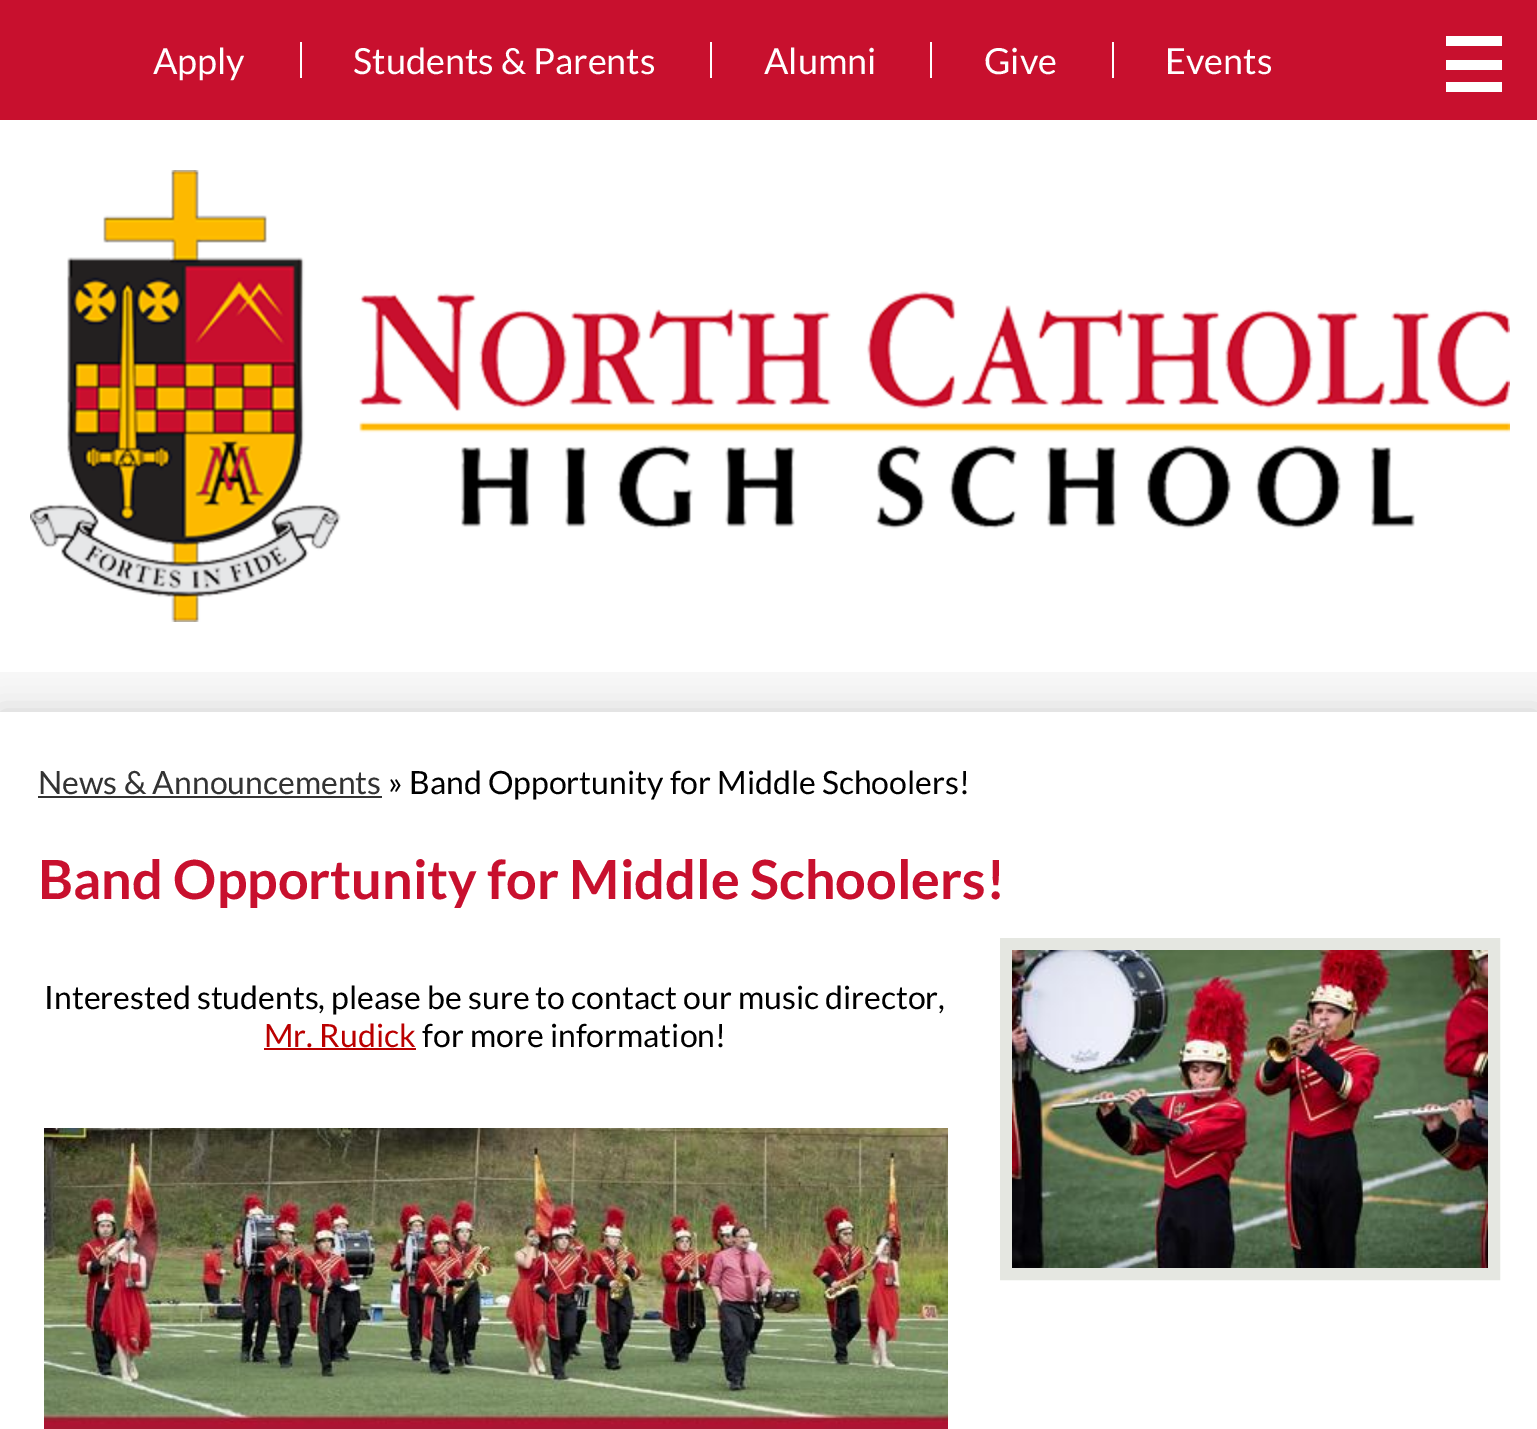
%!PS
<< /PageSize [1537 1429] /PageUsesTransparency true >> setpagedevice
/lw/setlinewidth load def
/co { dup -16 bitshift 255 div exch dup -8 bitshift 255 and 255 div exch 255 and 255 div setrgbcolor } def
/fn { [ exch dup neg 0 0 3 -1 roll 0 0 ] selectfont } def
/tx { co fn moveto show } def
/bx { co rectfill } def
/al { dup .setfillconstantalpha .setstrokeconstantalpha } def
/rr { 5 dict begin { /r /h /w /y /x } { exch def } forall
  x r add y moveto x w add y 2 copy h add r arct x w add y h add x 1 index r arct
  x y h add x y r arct x y 2 copy exch w add exch r arct closepath end } def
/sh { 12 dict begin { /a /b /q /h /w /y /x } { exch def } forall gsave /was 0 def
  9 -2 -9 { dup b mul 4 div /e exch def 1 sub .425 mul 2.718 exch exp 1 add a .99 .min exch div /now exch def
    1 1 now sub 1 was sub div sub al /was now def
    w h .min e 2 mul add 0 gt { x e sub y e sub w e 2 mul add h e 2 mul add
      q e add b .6 mul add w h .min 2 div e add .min 0 .max rr fill } if } for grestore end } def
/im { 5 dict begin { /h /w /y /x /name } { exch def } forall
  gsave x y translate w h scale
  w h 8 [w 0 0 h 0 0] name (r) file false 3 colorimage grestore end } def
0 .pushpdf14devicefilter
0 1429 translate 1 -1 scale
4 setmiterlimit
0 0 1537 1429 16#F7F7F7 bx
16#000000 co
0 712 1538 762 0 15 .15 sh
0 120 1537 552 16#FFFFFF bx
0 0 1537 120 16#C8102E bx
300 42 2 36 16#FFFFFF bx
710 42 2 36 16#FFFFFF bx
930 42 2 36 16#FFFFFF bx
1112 42 2 36 16#FFFFFF bx
1446 36 56 10 16#FFFFFF bx
1446 60 56 10 16#FFFFFF bx
1446 82 56 10 16#FFFFFF bx
(media/1.raw) 30 170 1480 452 im
0 712 1537 717 16#FFFFFF bx
38 796 344 2 16#333333 bx
264 1048 152 2 16#BA0000 bx
(media/2.raw) 44 1128 904 301 im
16#E5E7E1 co
12 lw
1006 944 488 330 rectstroke
(media/3.raw) 1012 950 476 318 im
(Apply) 153 74 /Lato-Regular 36 16#FFFFFF tx
(Students & Parents) 353 74 /Lato-Regular 36 16#FFFFFF tx
(Alumni) 764 74 /Lato-Regular 36 16#FFFFFF tx
(Give) 984 74 /Lato-Regular 36 16#FFFFFF tx
(Events) 1165 74 /Lato-Regular 36 16#FFFFFF tx
(News & Announcements) 38 794 /Lato-Regular 32 16#333333 tx
(» Band Opportunity for Middle Schoolers!) 388 794 /Lato-Regular 32 16#000000 tx
(Band Opportunity for Middle Schoolers!) 38 899 /Lato-Bold 54 16#C8102E tx
(Interested students, please be sure to contact our music director,) 44 1009 /Lato-Regular 32 16#000000 tx
(Mr. Rudick) 264 1047 /Lato-Regular 32 16#BA0000 tx
(for more information!) 422 1047 /Lato-Regular 32 16#000000 tx
.poppdf14devicefilter showpage
